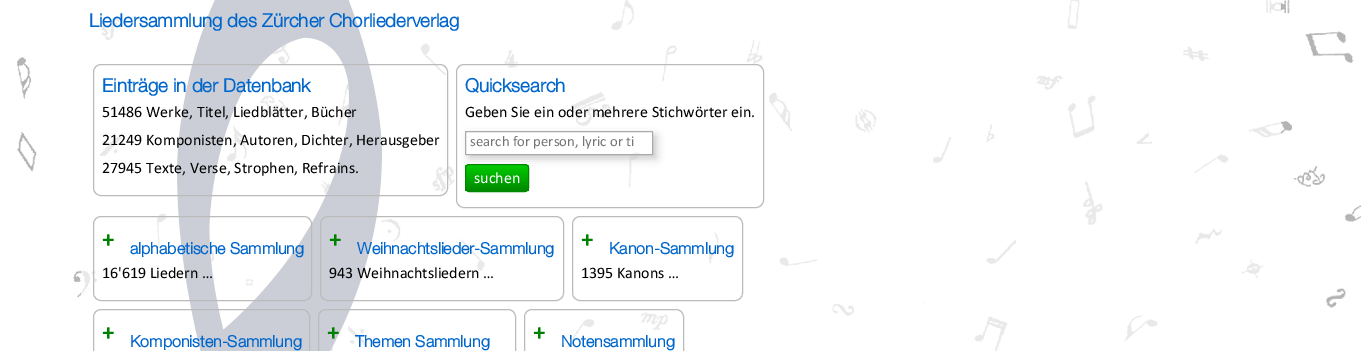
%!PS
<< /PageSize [1361 351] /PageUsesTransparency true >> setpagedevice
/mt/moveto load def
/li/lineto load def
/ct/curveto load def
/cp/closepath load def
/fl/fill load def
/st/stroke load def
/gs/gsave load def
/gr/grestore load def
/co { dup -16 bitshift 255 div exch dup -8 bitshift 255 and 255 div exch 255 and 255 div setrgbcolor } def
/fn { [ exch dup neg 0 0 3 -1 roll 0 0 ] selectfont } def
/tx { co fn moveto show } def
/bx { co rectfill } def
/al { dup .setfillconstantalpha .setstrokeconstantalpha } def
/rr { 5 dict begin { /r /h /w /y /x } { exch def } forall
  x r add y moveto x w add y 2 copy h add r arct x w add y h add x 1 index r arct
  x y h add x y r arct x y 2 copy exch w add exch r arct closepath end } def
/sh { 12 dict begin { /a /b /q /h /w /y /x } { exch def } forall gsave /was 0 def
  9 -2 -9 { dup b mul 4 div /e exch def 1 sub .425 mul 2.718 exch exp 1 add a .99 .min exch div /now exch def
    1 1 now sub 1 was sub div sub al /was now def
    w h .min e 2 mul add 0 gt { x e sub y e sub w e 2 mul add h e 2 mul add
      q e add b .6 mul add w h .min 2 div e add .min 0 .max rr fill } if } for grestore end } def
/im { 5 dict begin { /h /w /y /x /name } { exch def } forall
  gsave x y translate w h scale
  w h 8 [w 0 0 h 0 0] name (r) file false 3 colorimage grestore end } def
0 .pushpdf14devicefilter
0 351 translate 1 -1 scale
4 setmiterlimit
0 0 1361 351 16#FFFFFF bx
(media/1.raw) 17 0 1344 351 im
0.7 al
81 0 1200 351 16#FFFFFF bx
1 al
16#BBBBBB co
93.5 64.5 354 131 7.5 rr st
456.5 64.5 307 143 7.5 rr st
gs
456 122 mt 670 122 li 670 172 li 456 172 li cp 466 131 mt 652 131 li 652.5 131 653 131.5 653 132 ct 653 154 li 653 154.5 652.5 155 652 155 ct 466 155 li 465.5 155 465 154.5 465 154 ct 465 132 li 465 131.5 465.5 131 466 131 ct cp eoclip newpath
16#CCCCCC co
469 135 188 24 1 4 1 sh
gr
0.5 al
16#FFFFFF co
465.5 131.5 187 23 .5 rr fl
1 al
16#AAAAAA co
465.5 131.5 187 23 .5 rr st
gs
465 164 64 28 4 rr clip newpath
gs 465 165 mt 529 165 li 529 191 li 465 191 li cp clip newpath
<< /ShadingType 2 /ColorSpace /DeviceRGB /Coords [497 165 497 191] /Extend [true true] /Function << /FunctionType 2 /Domain [0 1] /C0 [0 .8 0] /C1 [0 .533 0] /N 1 >> >> shfill gr
gr
16#008800 co
465.5 164.5 63 27 3.5 rr st
16#BBBBBB co
93.5 216.5 218 84 7.5 rr st
320.5 216.5 243 84 7.5 rr st
572.5 216.5 170 84 7.5 rr st
93.5 309.5 216 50 7.5 rr st
318.5 309.5 197 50 7.5 rr st
524.5 309.5 159 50 7.5 rr st
(Liedersammlung des Zürcher Chorliederverlag) 89 27 /HelveticaNeue-Bold 18.7 16#0066CC tx
(Einträge in der Datenbank) 102 92 /HelveticaNeue-Bold 18.7 16#0066CC tx
(51486 Werke, Titel, Liedblätter, Bücher) 102 117 /Calibri-Regular 16 16#000000 tx
(21249 Komponisten, Autoren, Dichter, Herausgeber) 102 145 /Calibri-Regular 16 16#000000 tx
(27945 Texte, Verse, Strophen, Refrains.) 102 173 /Calibri-Regular 16 16#000000 tx
(Quicksearch) 465 92 /HelveticaNeue-Bold 18.7 16#0066CC tx
(Geben Sie ein oder mehrere Stichwörter ein.) 465 117 /Calibri-Regular 16 16#000000 tx
(search for person, lyric or ti) 470 146 /Calibri-Regular 14.75 16#757575 tx
(suchen) 474 183 /Calibri-Regular 16 16#FFFFFF tx
(+) 102 247 /Calibri-Bold 24 16#008000 tx
(alphabetische Sammlung) 130 254 /HelveticaNeue-Bold 16 16#0066CC tx
(16'619 Liedern …) 102 278 /Calibri-Regular 16 16#000000 tx
(+) 329 247 /Calibri-Bold 24 16#008000 tx
(Weihnachtslieder-Sammlung) 357 254 /HelveticaNeue-Bold 16 16#0066CC tx
(943 Weihnachtsliedern …) 329 278 /Calibri-Regular 16 16#000000 tx
(+) 581 247 /Calibri-Bold 24 16#008000 tx
(Kanon-Sammlung) 609 254 /HelveticaNeue-Bold 16 16#0066CC tx
(1395 Kanons …) 581 278 /Calibri-Regular 16 16#000000 tx
(+) 102 340 /Calibri-Bold 24 16#008000 tx
(Komponisten-Sammlung) 130 347 /HelveticaNeue-Bold 16 16#0066CC tx
(+) 327 340 /Calibri-Bold 24 16#008000 tx
(Themen Sammlung) 355 347 /HelveticaNeue-Bold 16 16#0066CC tx
(+) 533 340 /Calibri-Bold 24 16#008000 tx
(Notensammlung) 561 347 /HelveticaNeue-Bold 16 16#0066CC tx
.poppdf14devicefilter showpage
